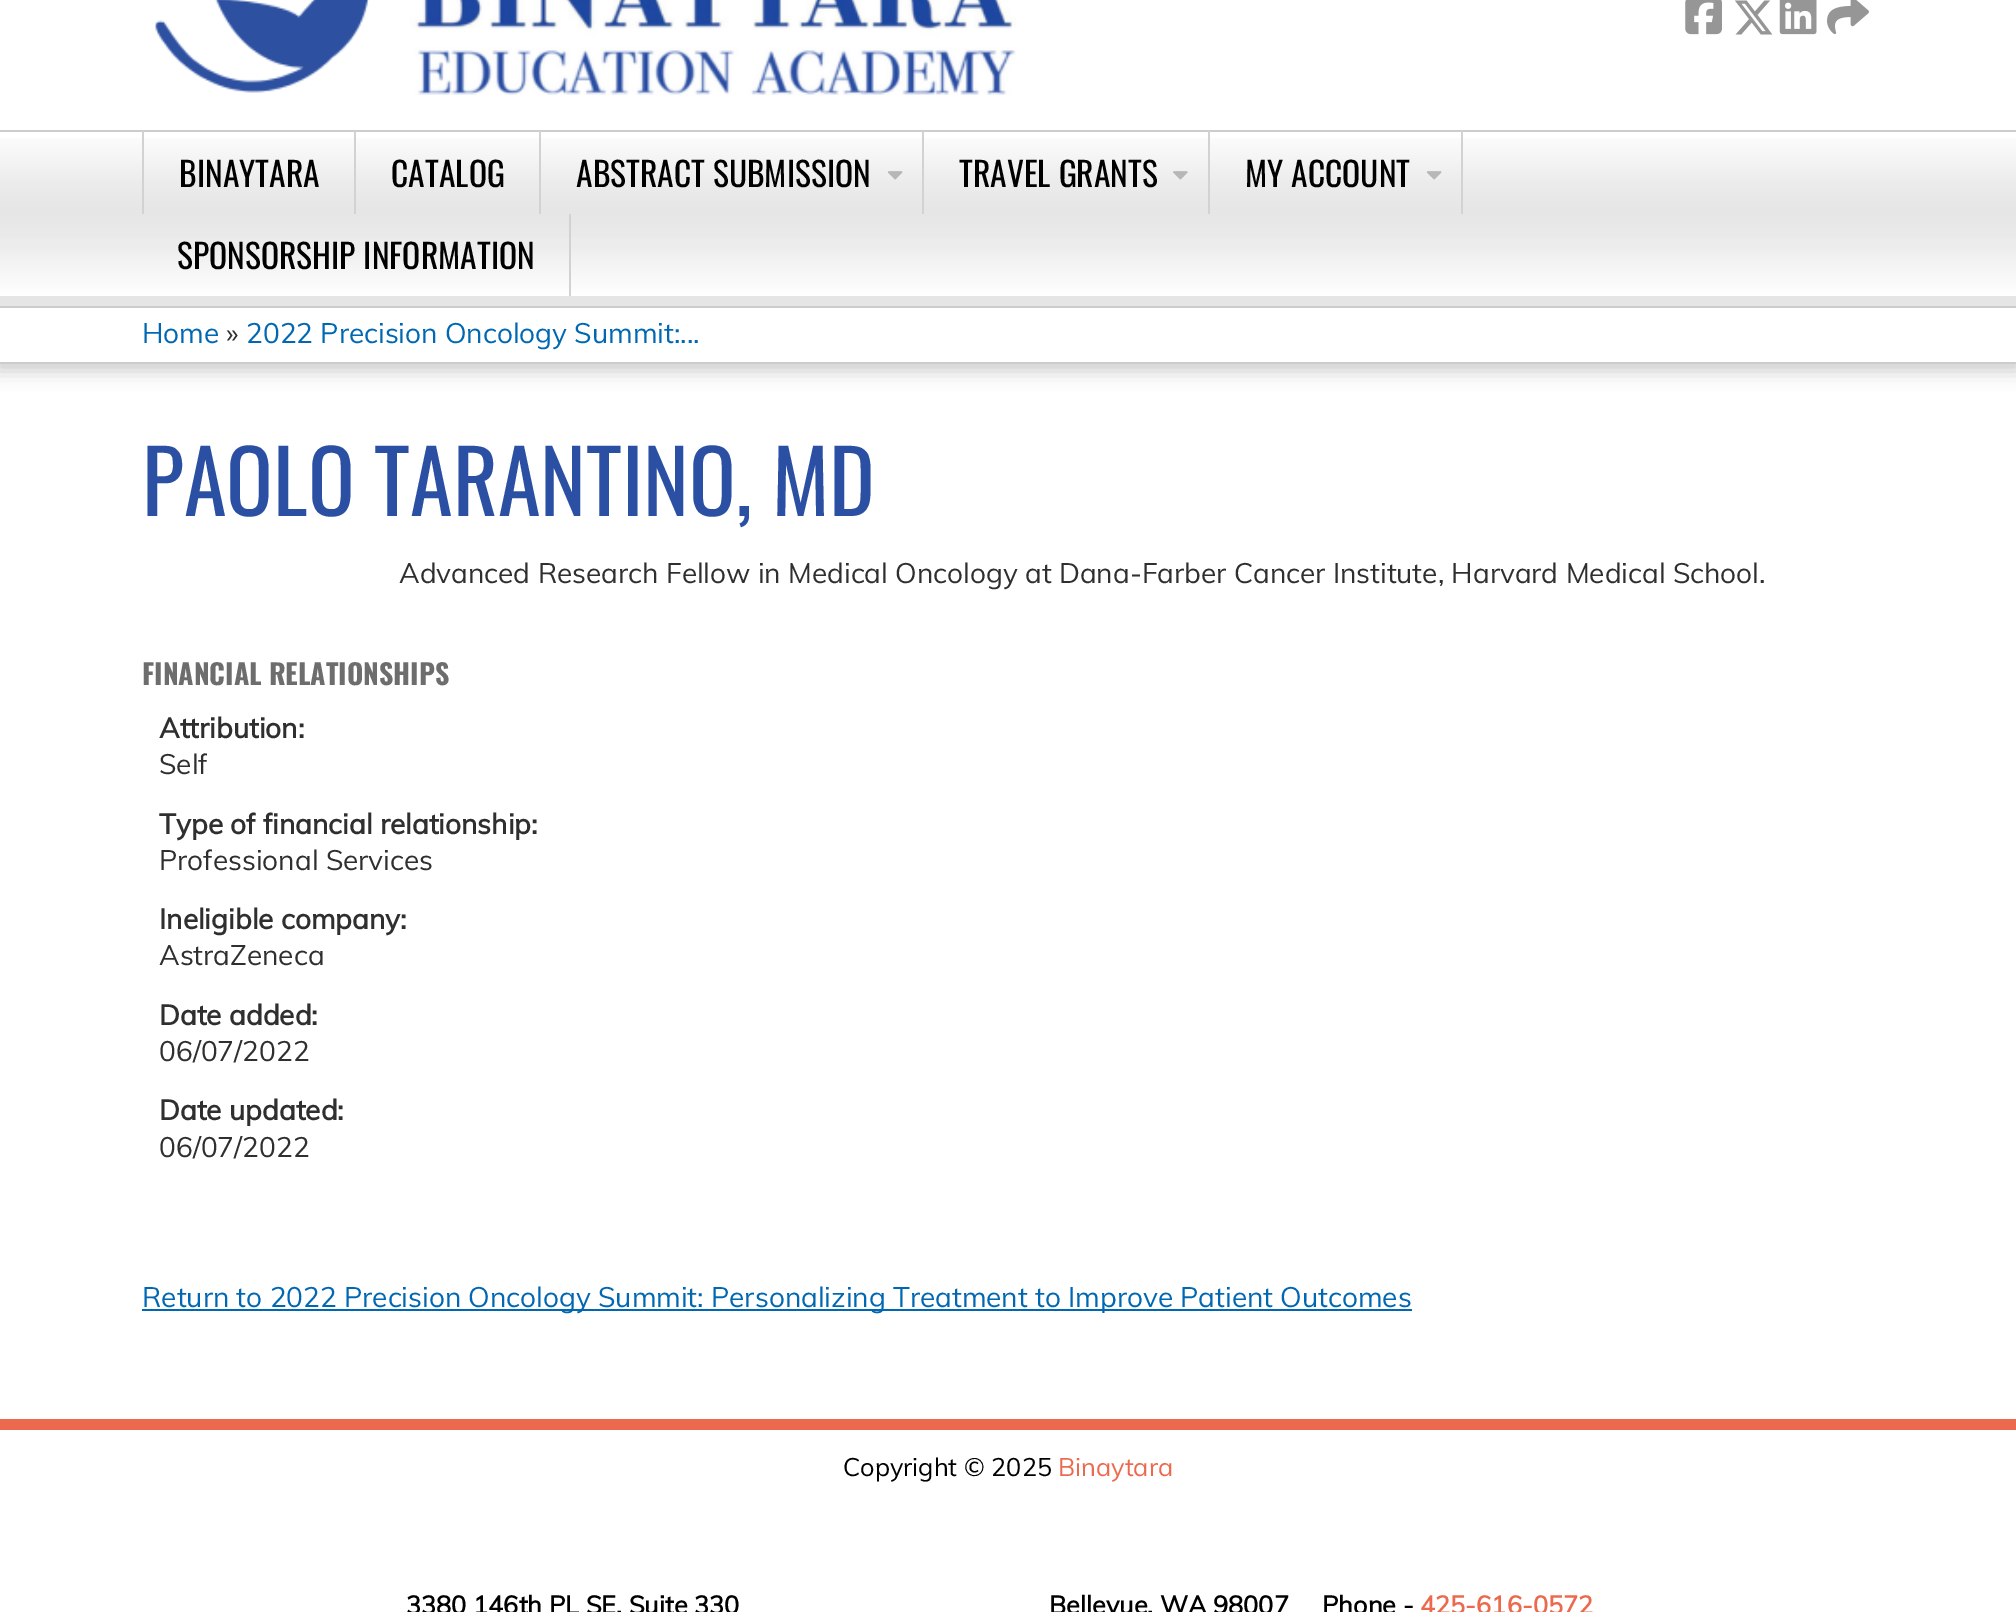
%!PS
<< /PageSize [2016 1612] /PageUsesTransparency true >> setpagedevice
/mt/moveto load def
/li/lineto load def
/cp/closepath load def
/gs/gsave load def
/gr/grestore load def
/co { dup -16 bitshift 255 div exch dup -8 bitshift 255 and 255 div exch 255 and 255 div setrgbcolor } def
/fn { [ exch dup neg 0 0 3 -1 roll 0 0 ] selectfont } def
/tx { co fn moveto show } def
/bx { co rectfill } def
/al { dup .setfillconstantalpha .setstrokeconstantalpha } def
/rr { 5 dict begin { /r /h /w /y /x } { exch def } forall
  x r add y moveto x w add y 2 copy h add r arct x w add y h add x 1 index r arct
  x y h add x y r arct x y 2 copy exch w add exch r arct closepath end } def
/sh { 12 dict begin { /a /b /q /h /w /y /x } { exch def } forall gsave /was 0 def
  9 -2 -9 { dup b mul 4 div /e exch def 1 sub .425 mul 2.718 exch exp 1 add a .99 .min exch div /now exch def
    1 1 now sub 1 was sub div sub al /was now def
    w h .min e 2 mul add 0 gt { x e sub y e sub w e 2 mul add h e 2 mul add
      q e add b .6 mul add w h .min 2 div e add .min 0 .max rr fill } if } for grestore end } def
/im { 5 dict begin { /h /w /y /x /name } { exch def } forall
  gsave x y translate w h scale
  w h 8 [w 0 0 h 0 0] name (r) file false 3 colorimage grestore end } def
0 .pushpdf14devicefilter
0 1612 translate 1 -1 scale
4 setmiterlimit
0 0 2016 1612 16#FFFFFF bx
(media/1.raw) 155 0 861 95 im
(media/2.raw) 1685 0 37 35 im
(media/3.raw) 1734 0 39 35 im
(media/4.raw) 1779 0 38 35 im
(media/5.raw) 1827 0 42 35 im
16#000000 co
-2 310 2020 61 0 9 .2 sh
gs 0 138 mt 2016 138 li 2016 296 li 0 296 li cp clip newpath
<< /ShadingType 2 /ColorSpace /DeviceRGB /Coords [1008 131 1008 296] /Extend [true true] /Function << /FunctionType 3 /Domain [0 1] /Functions [<< /FunctionType 2 /Domain [0 1] /C0 [1 1 1] /C1 [.922 .922 .922] /N 1 >> << /FunctionType 2 /Domain [0 1] /C0 [.922 .922 .922] /C1 [.902 .902 .902] /N 1 >> << /FunctionType 2 /Domain [0 1] /C0 [.902 .902 .902] /C1 [.922 .922 .922] /N 1 >> << /FunctionType 2 /Domain [0 1] /C0 [.922 .922 .922] /C1 [1 1 1] /N 1 >>] /Bounds [.33 .5 .66] /Encode [0 1 0 1 0 1 0 1] >> >> shfill gr
0 130 2016 2 16#CCCCCC bx
0 296 2016 10 16#E5E5E5 bx
354 131 2 83 16#D2D2D2 bx
142 131 2 83 16#D2D2D2 bx
539 131 2 83 16#D2D2D2 bx
922 131 2 83 16#D2D2D2 bx
(media/6.raw) 887 171 16 9 im
1208 131 2 83 16#D2D2D2 bx
(media/7.raw) 1173 171 15 9 im
1461 131 2 83 16#D2D2D2 bx
(media/6.raw) 1426 171 16 9 im
569 214 2 82 16#D2D2D2 bx
0 308 2016 54 16#FFFFFF bx
0 306 2016 2 16#CCCCCC bx
0 362 2016 2 16#CCCCCC bx
142 1309 1270 2 16#0067B3 bx
0 1419 2016 11 16#EB6A4E bx
(BINAYTARA) 179 187 /Oswald-Regular 33.6 16#000000 tx
(CATALOG) 391 187 /Oswald-Regular 33.6 16#000000 tx
(ABSTRACT SUBMISSION) 576 187 /Oswald-Regular 33.6 16#000000 tx
(TRAVEL GRANTS) 959 187 /Oswald-Regular 33.6 16#000000 tx
(MY ACCOUNT) 1245 187 /Oswald-Regular 33.6 16#000000 tx
(SPONSORSHIP INFORMATION) 177 269 /Oswald-Regular 33.6 16#000000 tx
(Home) 142 343 /Muli-Regular 28 16#0067B3 tx
(») 226 343 /Muli-Regular 28 16#2F2F2F tx
(2022 Precision Oncology Summit:...) 246 343 /Muli-Regular 28 16#0067B3 tx
(PAOLO TARANTINO, MD) 142 516 /Oswald-Regular 86.75 16#2A4FA3 tx
(Advanced Research Fellow in Medical Oncology at Dana-Farber Cancer Institute, Harvard Medical School.) 399 583 /Muli-Regular 28 16#2F2F2F tx
(FINANCIAL RELATIONSHIPS) 142 685 /Oswald-Bold 28 16#6D6D6D tx
(Attribution:) 159 738 /Muli-Bold 28 16#2F2F2F tx
(Self) 159 774 /Muli-Regular 28 16#2F2F2F tx
(Type of financial relationship:) 159 834 /Muli-Bold 28 16#2F2F2F tx
(Professional Services) 159 870 /Muli-Regular 28 16#2F2F2F tx
(Ineligible company:) 159 929 /Muli-Bold 28 16#2F2F2F tx
(AstraZeneca) 159 965 /Muli-Regular 28 16#2F2F2F tx
(Date added:) 159 1025 /Muli-Bold 28 16#2F2F2F tx
(06/07/2022) 159 1061 /Muli-Regular 28 16#2F2F2F tx
(Date updated:) 159 1120 /Muli-Bold 28 16#2F2F2F tx
(06/07/2022) 159 1157 /Muli-Regular 28 16#2F2F2F tx
(Return to 2022 Precision Oncology Summit: Personalizing Treatment to Improve Patient Outcomes) 142 1307 /Muli-Regular 28 16#0067B3 tx
(Copyright © 2025) 843 1476 /Muli-Regular 25.25 16#000000 tx
(Binaytara) 1058 1476 /Muli-Regular 25.25 16#EB6A4E tx
(3380 146th PL SE, Suite 330) 406 1614 /Muli-Bold 25.25 16#000000 tx
(Bellevue, WA 98007) 1049 1614 /Muli-Bold 25.25 16#000000 tx
(Phone -) 1322 1614 /Muli-Bold 25.25 16#000000 tx
(425-616-0572) 1420 1614 /Muli-Bold 25.25 16#EB6A4E tx
.poppdf14devicefilter showpage
